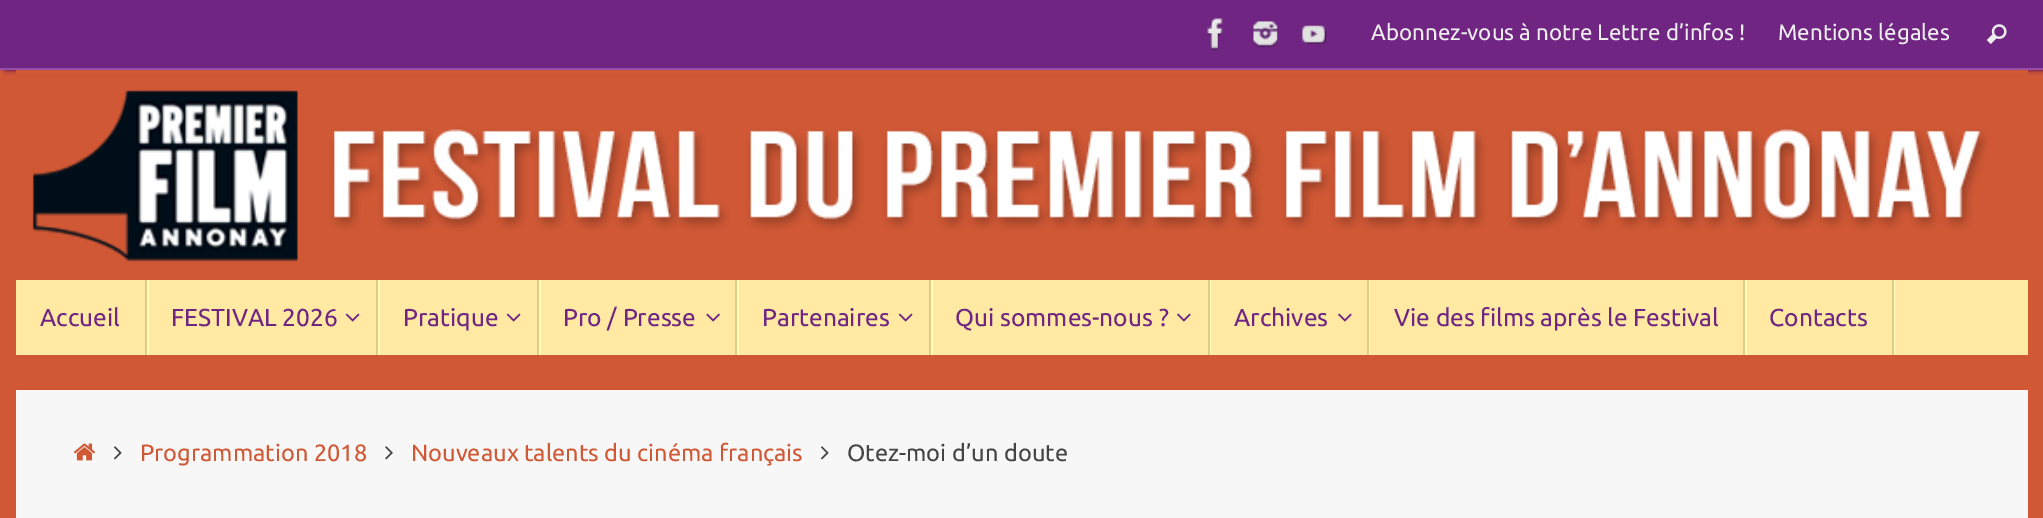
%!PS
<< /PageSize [2043 518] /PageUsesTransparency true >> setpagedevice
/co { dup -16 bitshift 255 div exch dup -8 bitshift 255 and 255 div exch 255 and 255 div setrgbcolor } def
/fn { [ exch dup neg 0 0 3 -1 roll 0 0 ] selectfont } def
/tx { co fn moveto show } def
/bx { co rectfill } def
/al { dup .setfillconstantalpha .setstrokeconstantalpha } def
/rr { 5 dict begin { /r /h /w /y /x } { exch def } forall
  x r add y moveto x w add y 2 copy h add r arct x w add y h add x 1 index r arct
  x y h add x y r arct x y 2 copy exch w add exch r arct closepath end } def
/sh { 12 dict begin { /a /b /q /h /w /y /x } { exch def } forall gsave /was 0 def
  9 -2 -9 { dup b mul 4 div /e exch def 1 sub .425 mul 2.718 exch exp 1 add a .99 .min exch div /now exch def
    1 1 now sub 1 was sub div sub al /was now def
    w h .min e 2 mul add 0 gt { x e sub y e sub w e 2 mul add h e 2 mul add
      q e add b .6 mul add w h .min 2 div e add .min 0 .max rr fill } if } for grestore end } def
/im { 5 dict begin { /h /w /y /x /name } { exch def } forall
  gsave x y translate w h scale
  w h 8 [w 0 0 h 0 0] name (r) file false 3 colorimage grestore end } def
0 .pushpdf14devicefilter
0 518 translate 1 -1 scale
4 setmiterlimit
0 0 2043 518 16#D05835 bx
16#48005B co
5 0 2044 70 0 2.5 1 sh
0 0 2043 68 16#702583 bx
0 68 2043 2 16#984DAB bx
(media/1.raw) 1206 18 17 33 im
(media/2.raw) 1252 21 27 27 im
(media/3.raw) 1302 25 25 19 im
(media/4.raw) 1986 24 21 21 im
16 70 2012 5 16#D05835 bx
(media/5.raw) 32 90 1956 172 im
16 280 2012 75 16#FFE9A3 bx
147 280 2 75 16#FFFFBB bx
145 280 2 75 16#E1CB85 bx
378 280 2 75 16#FFFFBB bx
376 280 2 75 16#E1CB85 bx
(media/6.raw) 345 313 15 9 im
539 280 2 75 16#FFFFBB bx
537 280 2 75 16#E1CB85 bx
(media/6.raw) 506 313 15 9 im
737 280 2 75 16#FFFFBB bx
735 280 2 75 16#E1CB85 bx
(media/7.raw) 706 313 14 9 im
931 280 2 75 16#FFFFBB bx
929 280 2 75 16#E1CB85 bx
(media/6.raw) 898 313 15 9 im
1210 280 1 75 16#FFFFBB bx
1208 280 2 75 16#E1CB85 bx
(media/8.raw) 1177 313 14 9 im
1369 280 1 75 16#FFFFBB bx
1367 280 2 75 16#E1CB85 bx
(media/8.raw) 1338 313 14 9 im
1745 280 2 75 16#FFFFBB bx
1743 280 2 75 16#E1CB85 bx
1894 280 1 75 16#FFFFBB bx
1892 280 2 75 16#E1CB85 bx
16 390 2012 128 16#F7F7F7 bx
(media/9.raw) 73 443 22 18 im
(media/10.raw) 114 446 8 14 im
(media/11.raw) 385 446 8 14 im
(media/10.raw) 821 446 8 14 im
(Abonnez-vous à notre Lettre d’infos !) 1371 40 /Ubuntu-Regular 22.3 16#EEEEEE tx
(Mentions légales) 1778 40 /Ubuntu-Regular 22.3 16#EEEEEE tx
(Accueil) 40 326 /Ubuntu-Regular 24.5 16#702583 tx
(FESTIVAL 2026) 171 326 /Ubuntu-Regular 24.5 16#702583 tx
(Pratique) 403 326 /Ubuntu-Regular 24.5 16#702583 tx
(Pro / Presse) 563 326 /Ubuntu-Regular 24.5 16#702583 tx
(Partenaires) 762 326 /Ubuntu-Regular 24.5 16#702583 tx
(Qui sommes-nous ?) 955 326 /Ubuntu-Regular 24.5 16#702583 tx
(Archives) 1234 326 /Ubuntu-Regular 24.5 16#702583 tx
(Vie des films après le Festival) 1394 326 /Ubuntu-Regular 24.5 16#702583 tx
(Contacts) 1769 326 /Ubuntu-Regular 24.5 16#702583 tx
(Programmation 2018) 140 461 /Ubuntu-Regular 23.6 16#D05835 tx
(Nouveaux talents du cinéma français) 411 461 /Ubuntu-Regular 23.6 16#D05835 tx
(Otez-moi d’un doute) 847 461 /Ubuntu-Regular 23.6 16#444444 tx
.poppdf14devicefilter showpage
